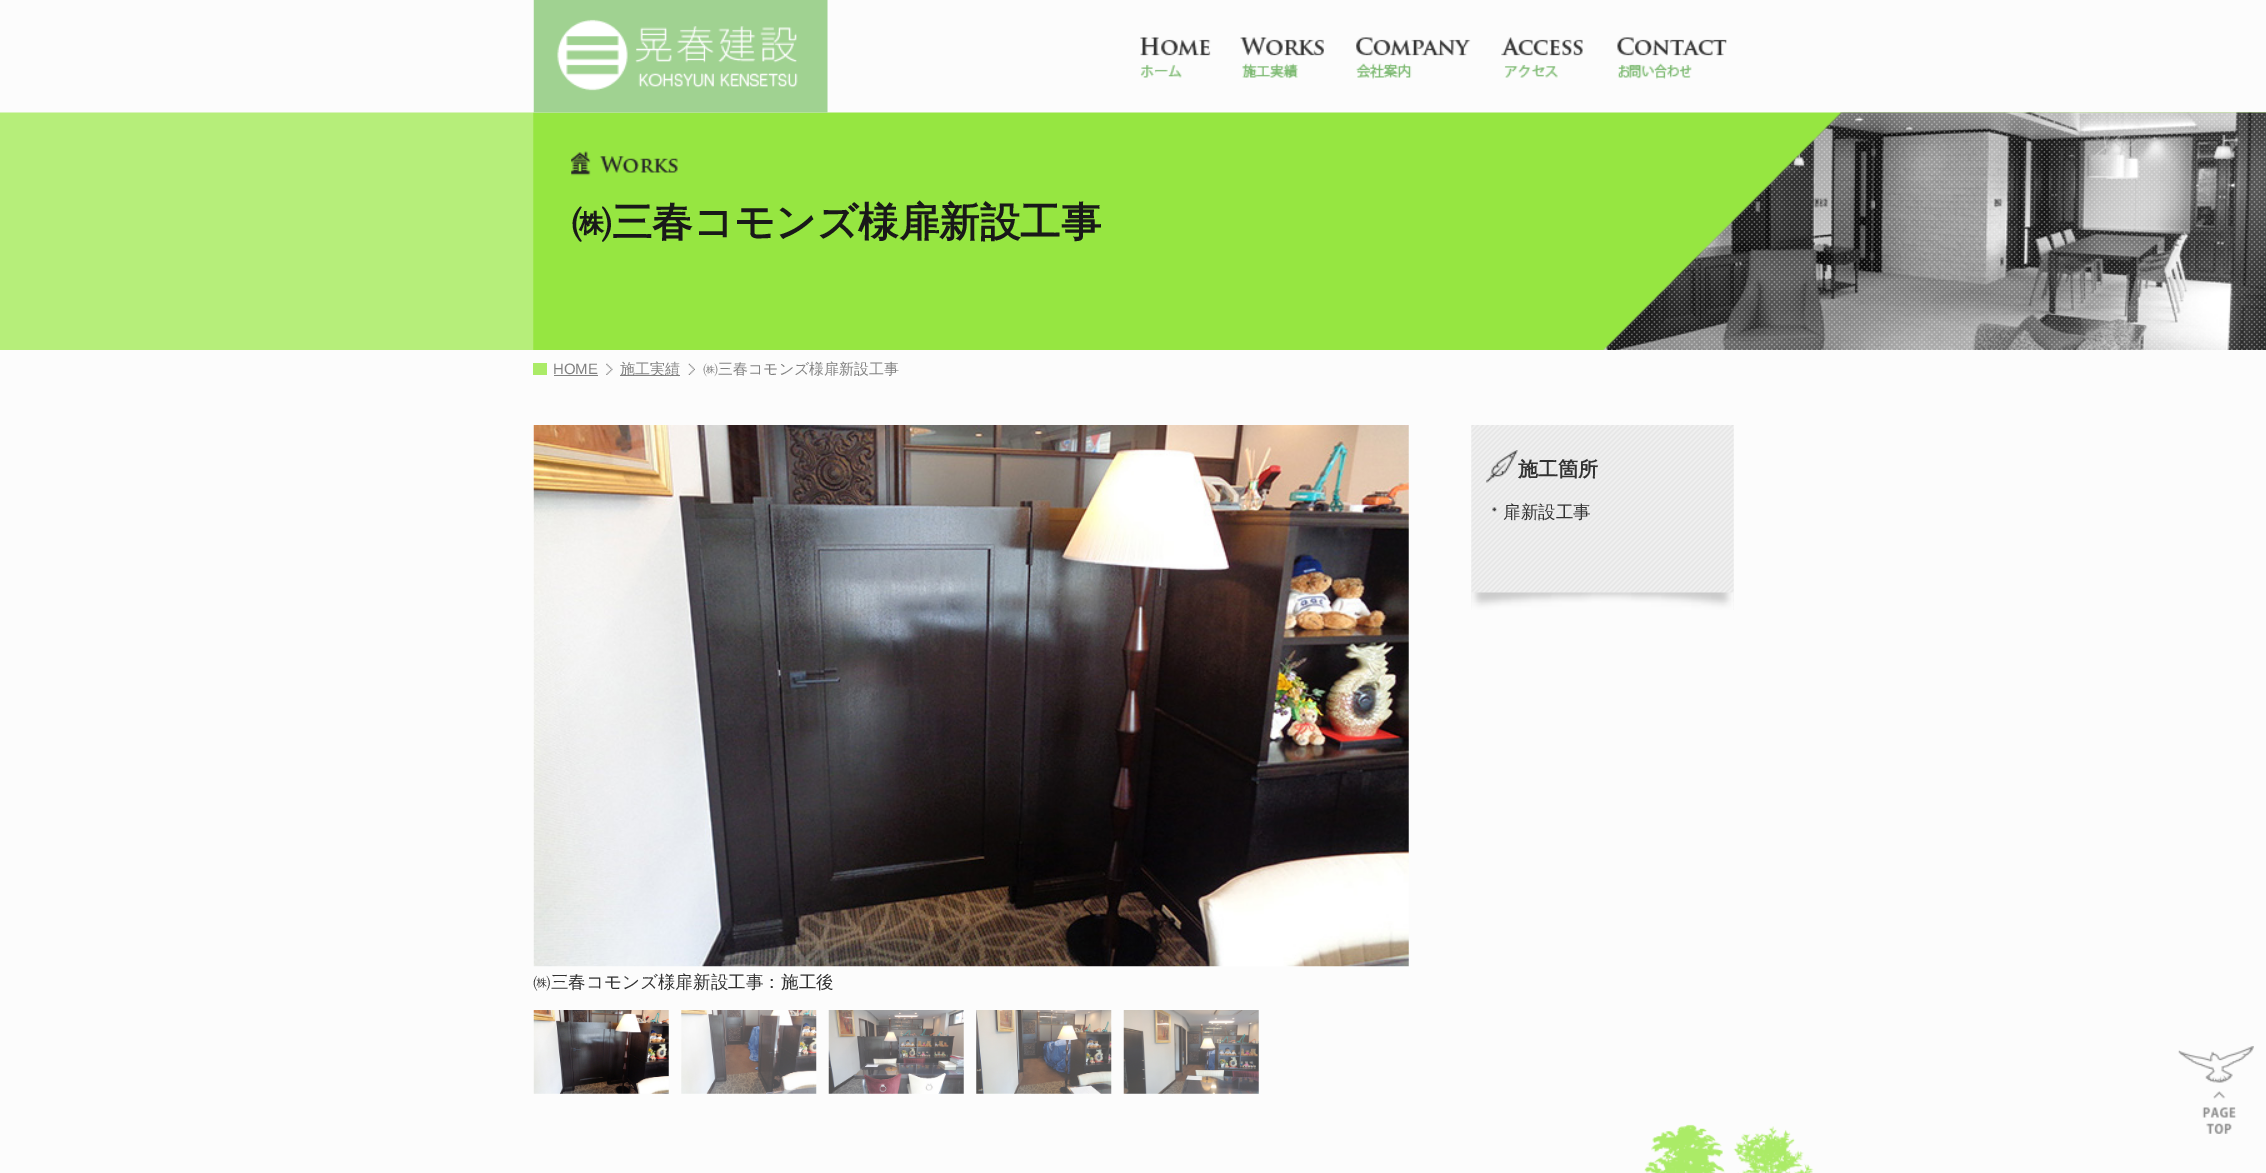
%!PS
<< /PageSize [2266 1173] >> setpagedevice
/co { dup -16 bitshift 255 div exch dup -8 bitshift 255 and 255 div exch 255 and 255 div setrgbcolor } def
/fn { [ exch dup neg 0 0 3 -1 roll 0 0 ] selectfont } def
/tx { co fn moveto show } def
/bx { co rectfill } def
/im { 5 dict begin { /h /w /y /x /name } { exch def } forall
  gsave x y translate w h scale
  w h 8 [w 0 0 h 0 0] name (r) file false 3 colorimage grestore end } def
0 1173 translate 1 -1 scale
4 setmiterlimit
0 0 2266 1173 16#FCFCFC bx
(media/7.raw) 0 112 2266 238 im
(media/1.raw) 533 0 295 113 im
(media/2.raw) 1140 37 71 41 im
(media/3.raw) 1240 37 84 42 im
(media/4.raw) 1356 37 115 42 im
(media/5.raw) 1501 37 82 41 im
(media/6.raw) 1617 37 110 42 im
(media/8.raw) 1603 112 663 238 im
(media/9.raw) 571 151 107 25 im
(media/10.raw) 1644 1124 170 49 im
533 363 14 12 16#ABEB67 bx
(media/11.raw) 606 363 7 12 im
554 375 44 1 16#7F7F7F bx
(media/12.raw) 688 363 7 12 im
620 375 60 1 16#7F7F7F bx
(media/13.raw) 1471 425 263 185 im
(media/14.raw) 1471 592 263 18 im
(media/15.raw) 1486 450 32 33 im
(media/16.raw) 1492 507 5 5 im
(media/17.raw) 533 425 876 542 im
(media/18.raw) 533 1010 136 84 im
(media/19.raw) 681 1010 136 84 im
(media/20.raw) 828 1010 136 84 im
(media/21.raw) 976 1010 136 84 im
(media/22.raw) 1123 1010 136 84 im
(media/23.raw) 2178 1046 76 88 im
(㈱三春コモンズ様扉新設工事) 571 236 /WenQuanYiZenHei-Bold 40.5 16#191919 tx
(HOME) 553 374 /LiberationSans-Regular 15 16#7F7F7F tx
(施工実績) 620 374 /WenQuanYiZenHei-Medium 15 16#7F7F7F tx
(㈱三春コモンズ様扉新設工事) 703 374 /WenQuanYiZenHei-Medium 15 16#7F7F7F tx
(施工箇所) 1518 476 /WenQuanYiZenHei-Bold 20 16#323232 tx
(扉新設工事) 1503 518 /WenQuanYiZenHei-Medium 17.6 16#323232 tx
(㈱三春コモンズ様扉新設工事：施工後) 533 988 /WenQuanYiZenHei-Medium 17.6 16#323232 tx
showpage
